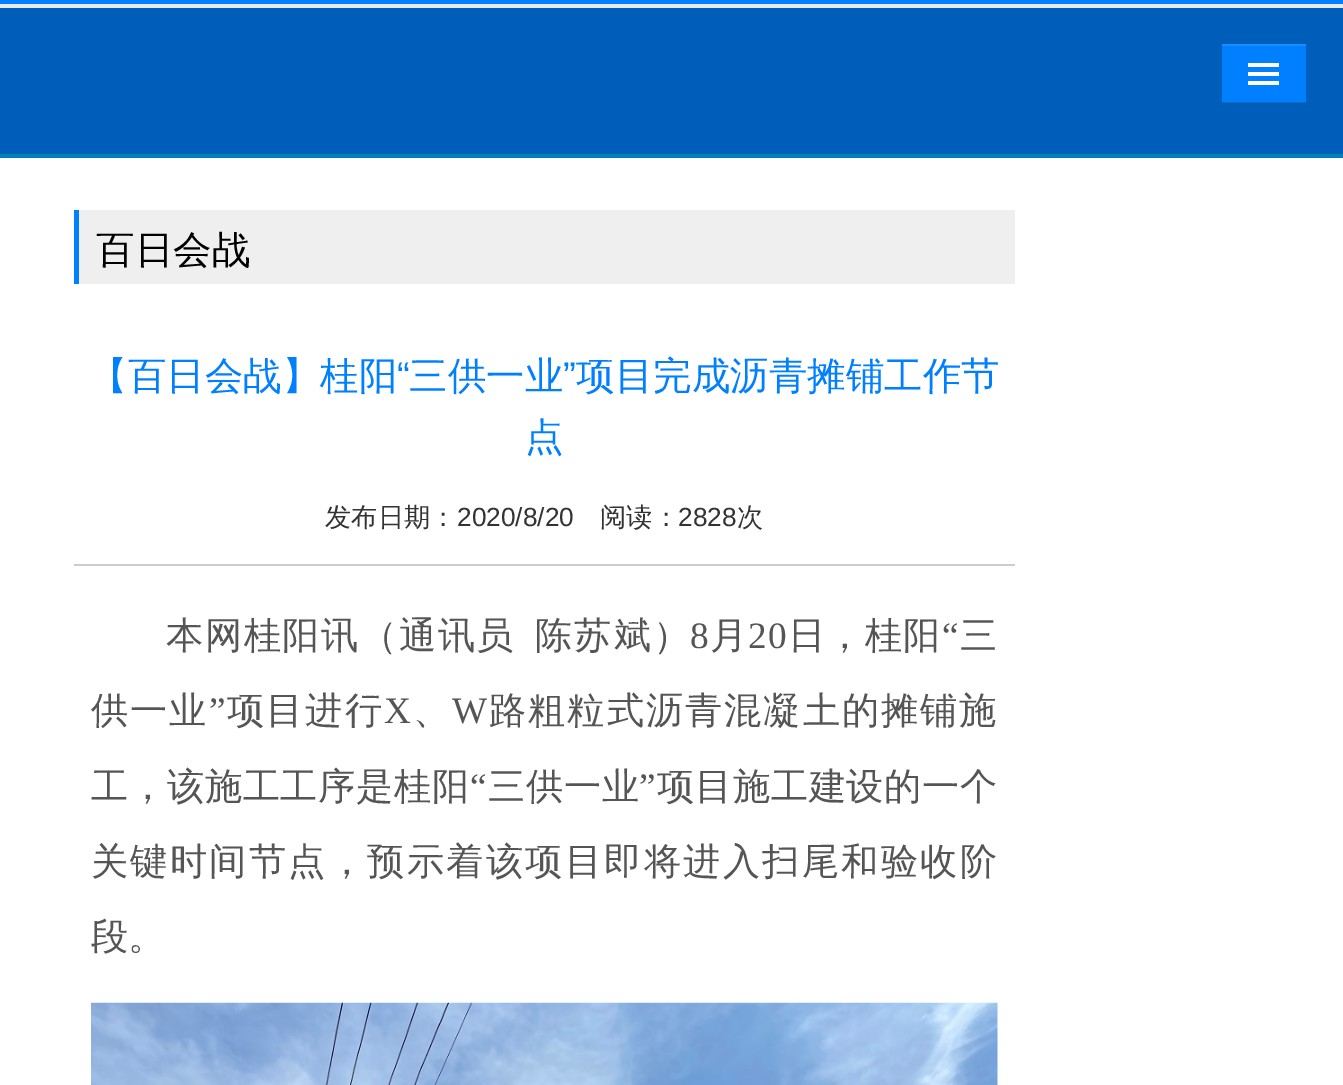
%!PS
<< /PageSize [1343 1085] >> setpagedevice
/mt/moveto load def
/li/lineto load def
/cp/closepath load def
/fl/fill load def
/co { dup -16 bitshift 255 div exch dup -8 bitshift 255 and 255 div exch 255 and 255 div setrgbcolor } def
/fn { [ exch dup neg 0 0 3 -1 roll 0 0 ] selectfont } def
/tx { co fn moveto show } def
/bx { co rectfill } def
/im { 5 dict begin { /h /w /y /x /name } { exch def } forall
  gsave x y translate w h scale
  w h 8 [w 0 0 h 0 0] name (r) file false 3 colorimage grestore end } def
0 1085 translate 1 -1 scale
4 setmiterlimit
0 0 1343 1085 16#FFFFFF bx
0 0 1343 4 16#007FFF bx
0 8 1343 146 16#005EBB bx
0 4 1343 4 16#EAEAEA bx
0 154 1343 4 16#007FBB bx
16#136AC0 co
1222 102 mt 1222 103 li 1306 103 li 1306 46 li 1306 102 li cp fl
1222 46 84 56 16#007FFF bx
1222 44 84 2 16#1A8CFF bx
1248 63 31 4 16#FFFFFF bx
1248 72 31 4 16#FFFFFF bx
1248 81 31 4 16#FFFFFF bx
79 210 936 74 16#EFEFEF bx
74 210 5 74 16#007FFF bx
74 564 941 2 16#CCCCCC bx
(media/1.raw) 91 1002 907 83 im
(百日会战) 96 263 /WenQuanYiZenHei-Medium 38.5 16#000000 tx
(【百日会战】桂阳) 89 389 /WenQuanYiZenHei-Medium 38.5 16#007FFF tx
(“) 397 389 /LiberationSans-Regular 38.5 16#007FFF tx
(三供一业) 409 389 /WenQuanYiZenHei-Medium 38.5 16#007FFF tx
(”) 563 389 /LiberationSans-Regular 38.5 16#007FFF tx
(项目完成沥青摊铺工作节) 576 389 /WenQuanYiZenHei-Medium 38.5 16#007FFF tx
(点) 525 450 /WenQuanYiZenHei-Medium 38.5 16#007FFF tx
(发布日期：) 325 526 /WenQuanYiZenHei-Medium 26.25 16#333333 tx
(2020/8/20) 457 526 /LiberationSans-Regular 26.25 16#333333 tx
(阅读：) 600 526 /WenQuanYiZenHei-Medium 26.25 16#333333 tx
(2828) 678 526 /LiberationSans-Regular 26.25 16#333333 tx
(次) 737 526 /WenQuanYiZenHei-Medium 26.25 16#333333 tx
/WenQuanYiZenHei-Medium 37.3 fn
16#555555 co
166 648 mt 1.5 0 (本网桂阳讯（通讯员) ashow
535 648 mt 2 0 (陈苏斌）) ashow
/LiberationSerif-Regular 37.3 fn
690 648 mt 1 0 (8) ashow
/WenQuanYiZenHei-Medium 37.3 fn
710 648 mt 1 0 (月) ashow
/LiberationSerif-Regular 37.3 fn
748 648 mt 1 0 (20) ashow
/WenQuanYiZenHei-Medium 37.3 fn
788 648 mt 1 0 (日，桂阳) ashow
/LiberationSerif-Regular 37.3 fn
942 648 mt 1 0 (“) ashow
/WenQuanYiZenHei-Medium 37.3 fn
960 648 mt 1 0 (三) ashow
91 723 mt 1.9 0 (供一业) ashow
/LiberationSerif-Regular 37.3 fn
209 723 mt 1.9 0 (”) ashow
/WenQuanYiZenHei-Medium 37.3 fn
227 723 mt 1.9 0 (项目进行) ashow
/LiberationSerif-Regular 37.3 fn
384 723 mt 1.9 0 (X) ashow
/WenQuanYiZenHei-Medium 37.3 fn
413 723 mt 1.9 0 (、) ashow
/LiberationSerif-Regular 37.3 fn
452 723 mt 1.9 0 (W) ashow
/WenQuanYiZenHei-Medium 37.3 fn
489 723 mt 1.9 0 (路粗粒式沥青混凝土的摊铺施) ashow
91 799 mt .6 0 (工，该施工工序是桂阳) ashow
/LiberationSerif-Regular 37.3 fn
470 799 mt .6 0 (“) ashow
/WenQuanYiZenHei-Medium 37.3 fn
488 799 mt .6 0 (三供一业) ashow
/LiberationSerif-Regular 37.3 fn
639 799 mt .6 0 (”) ashow
/WenQuanYiZenHei-Medium 37.3 fn
657 799 mt .6 0 (项目施工建设的一个) ashow
91 874 mt 2.2 0 (关键时间节点，预示着该项目即将进入扫尾和验收阶) ashow
(段。) 91 949 /WenQuanYiZenHei-Medium 37.3 16#555555 tx
showpage
